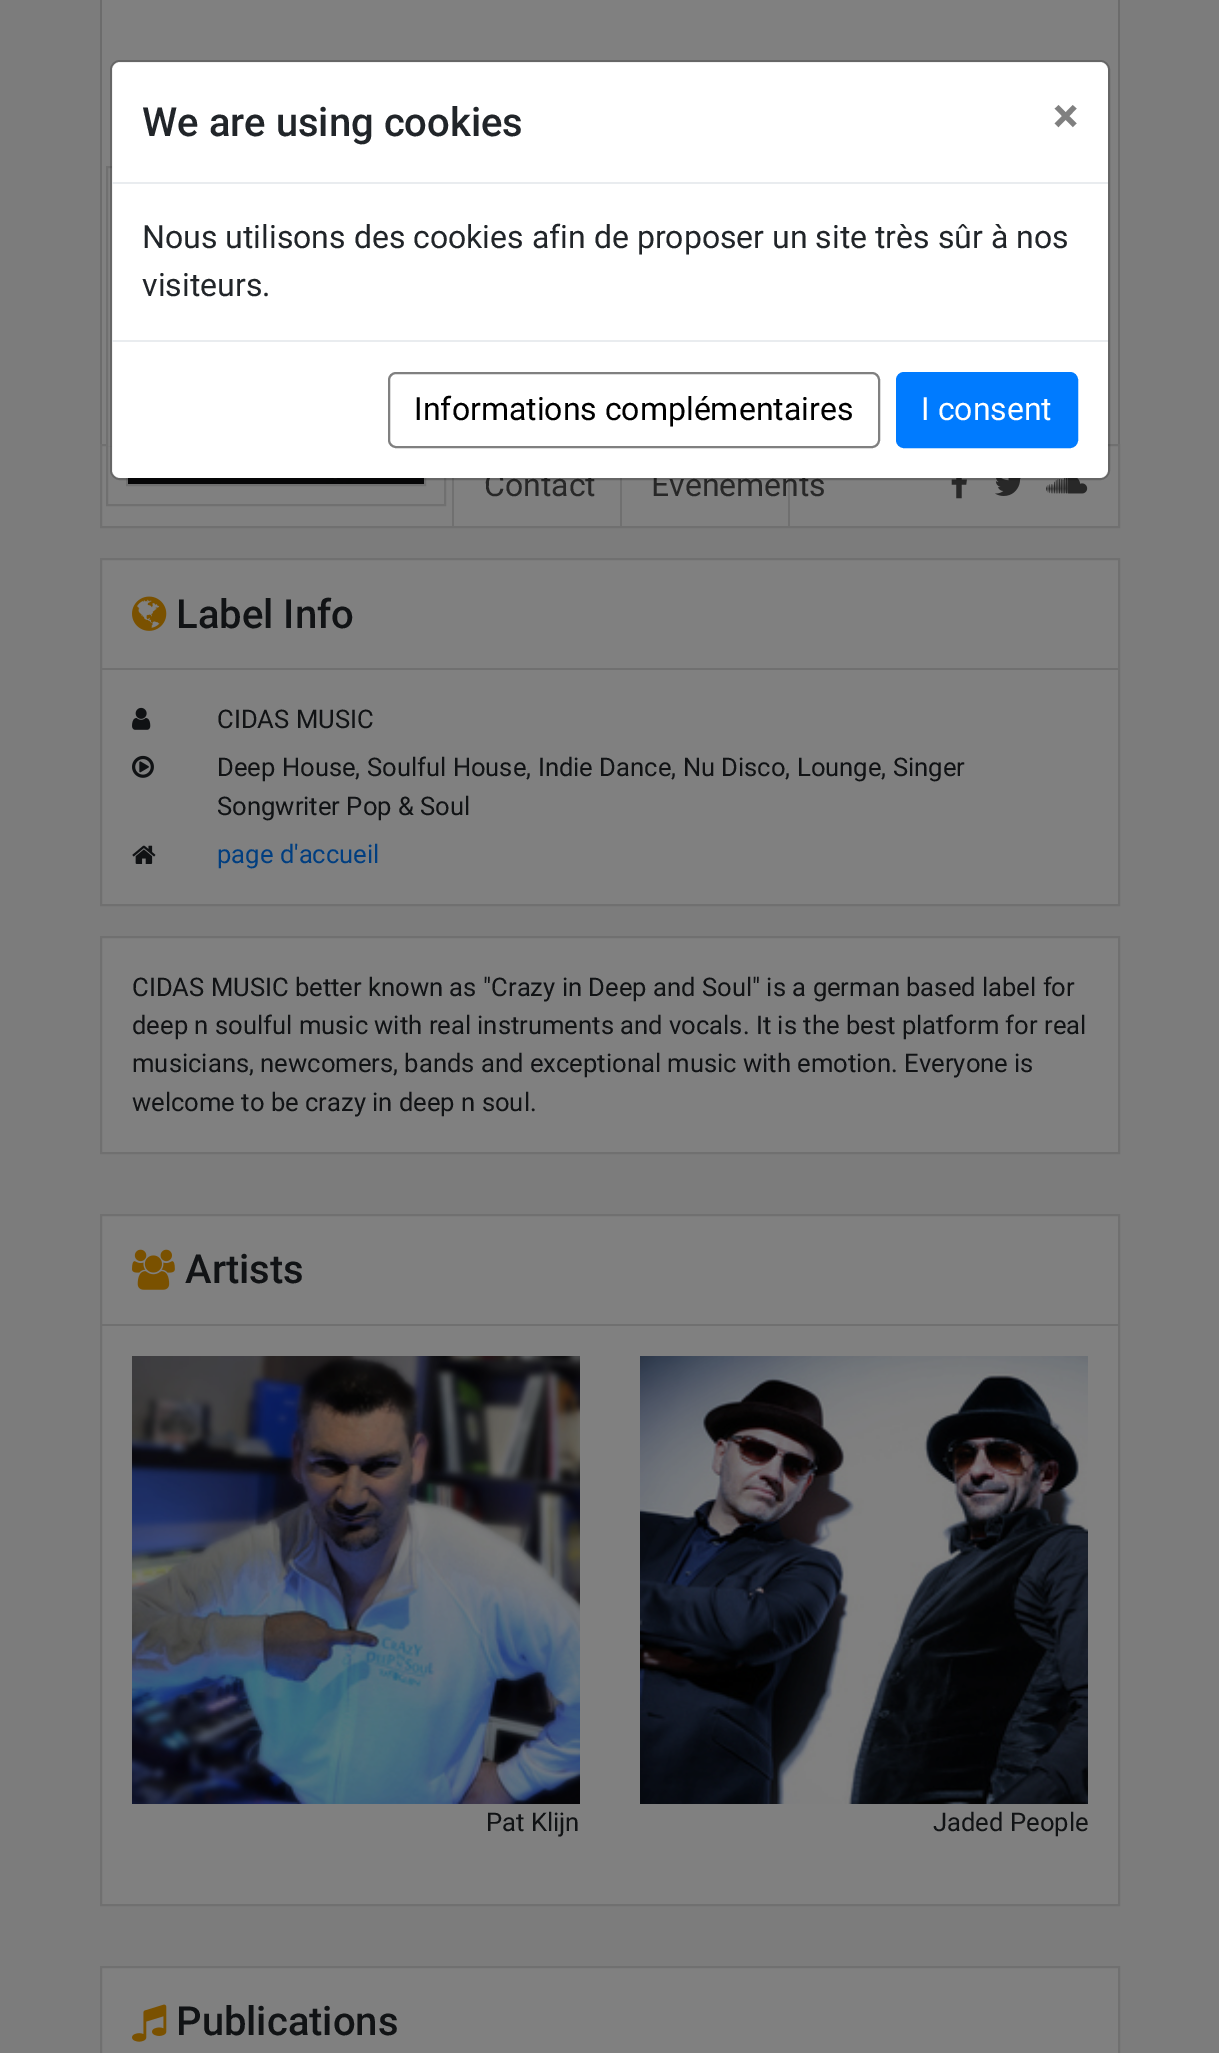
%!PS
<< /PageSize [1219 2053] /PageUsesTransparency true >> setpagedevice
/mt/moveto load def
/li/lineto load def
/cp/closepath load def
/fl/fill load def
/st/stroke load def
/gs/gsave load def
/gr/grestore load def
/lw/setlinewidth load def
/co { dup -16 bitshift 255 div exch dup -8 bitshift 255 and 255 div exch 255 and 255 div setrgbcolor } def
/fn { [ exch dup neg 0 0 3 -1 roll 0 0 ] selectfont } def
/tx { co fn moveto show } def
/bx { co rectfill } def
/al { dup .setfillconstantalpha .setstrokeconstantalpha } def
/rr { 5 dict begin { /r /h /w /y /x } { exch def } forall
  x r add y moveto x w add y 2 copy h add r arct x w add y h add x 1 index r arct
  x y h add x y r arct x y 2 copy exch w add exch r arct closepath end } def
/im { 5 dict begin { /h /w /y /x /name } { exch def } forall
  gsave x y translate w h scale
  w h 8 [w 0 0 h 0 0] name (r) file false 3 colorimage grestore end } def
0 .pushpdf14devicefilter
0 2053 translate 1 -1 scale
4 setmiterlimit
0 0 1219 2053 16#7C7C7C bx
100 0 2 444 16#6C6C6C bx
102 0 1016 444 16#808080 bx
1118 0 2 444 16#6C6C6C bx
16#808080 co
101 445 mt 1119 445 li 1119 527 li 101 527 li cp gs fl gr
16#707070 co
2 lw
st
108 444 336 2 16#808080 bx
16#707070 co
107 167 338 338 rectstroke
127 187 298 298 rectstroke
(media/1.raw) 128 478 296 6 im
620 478 2 48 16#707070 bx
452 478 2 48 16#707070 bx
788 478 2 48 16#707070 bx
(media/2.raw) 951 478 16 21 im
(media/3.raw) 995 478 26 18 im
(media/4.raw) 1046 478 42 16 im
16#808080 co
101 559 mt 1119 559 li 1119 905 li 101 905 li cp gs fl gr
16#707070 co
st
(media/5.raw) 132 596 35 35 im
102 668 1016 2 16#707070 bx
(media/6.raw) 132 707 19 23 im
(media/7.raw) 132 755 22 23 im
(media/8.raw) 132 845 24 19 im
16#808080 co
101 937 mt 1119 937 li 1119 1153 li 101 1153 li cp gs fl gr
16#707070 co
st
16#808080 co
101 1215 mt 1119 1215 li 1119 1905 li 101 1905 li cp gs fl gr
16#707070 co
st
(media/9.raw) 132 1249 43 41 im
102 1324 1016 2 16#707070 bx
(media/10.raw) 132 1356 448 448 im
(media/11.raw) 640 1356 448 448 im
16#808080 co
101 1967 mt 1119 1967 li 1119 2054 li 101 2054 li cp gs fl gr
16#707070 co
st
(media/12.raw) 132 2004 35 38 im
(Contact) 484 496 /Roboto-Regular 32 16#282828 tx
(Événements) 651 496 /Roboto-Regular 32 16#282828 tx
16#FFFFFF co
112 62 996 416 8 rr fl
0.2 al
16#000000 co
111 61 998 418 9 rr st
1 al
(visiteurs.) 142 296 /Roboto-Regular 32 16#212529 tx
(Nous utilisons des cookies afin de proposer un site très sûr à nos) 142 248 /Roboto-Regular 32 16#212529 tx
(×) 1053 132 /Roboto-Bold 48 16#808080 tx
16#007BFF co
897 373 180 74 7 rr gs fl gr
st
(I consent) 921 420 /Roboto-Regular 32 16#FFFFFF tx
16#808080 co
389 373 490 74 7 rr st
(Informations complémentaires) 414 420 /Roboto-Regular 32 16#000000 tx
112 340 996 2 16#E9ECEF bx
(We are using cookies) 142 136 /Roboto-Medium 40 16#212529 tx
112 182 996 2 16#E9ECEF bx
(Label Info) 176 628 /Roboto-Medium 40 16#111315 tx
(CIDAS MUSIC) 217 728 /Roboto-Regular 25.6 16#111315 tx
(Deep House, Soulful House, Indie Dance, Nu Disco, Lounge, Singer) 217 776 /Roboto-Regular 25.6 16#111315 tx
(Songwriter Pop & Soul) 217 815 /Roboto-Regular 25.6 16#111315 tx
(page d'accueil) 217 863 /Roboto-Regular 25.6 16#003E80 tx
(CIDAS MUSIC better known as "Crazy in Deep and Soul" is a german based label for) 132 996 /Roboto-Regular 25.6 16#111315 tx
(deep n soulful music with real instruments and vocals. It is the best platform for real) 132 1034 /Roboto-Regular 25.6 16#111315 tx
(musicians, newcomers, bands and exceptional music with emotion. Everyone is) 132 1072 /Roboto-Regular 25.6 16#111315 tx
(welcome to be crazy in deep n soul.) 132 1111 /Roboto-Regular 25.6 16#111315 tx
(Artists) 185 1283 /Roboto-Medium 40 16#111315 tx
(Pat Klijn) 486 1831 /Roboto-Regular 25.6 16#111315 tx
(Jaded People) 933 1831 /Roboto-Regular 25.6 16#111315 tx
(Publications) 176 2035 /Roboto-Medium 40 16#111315 tx
.poppdf14devicefilter showpage
